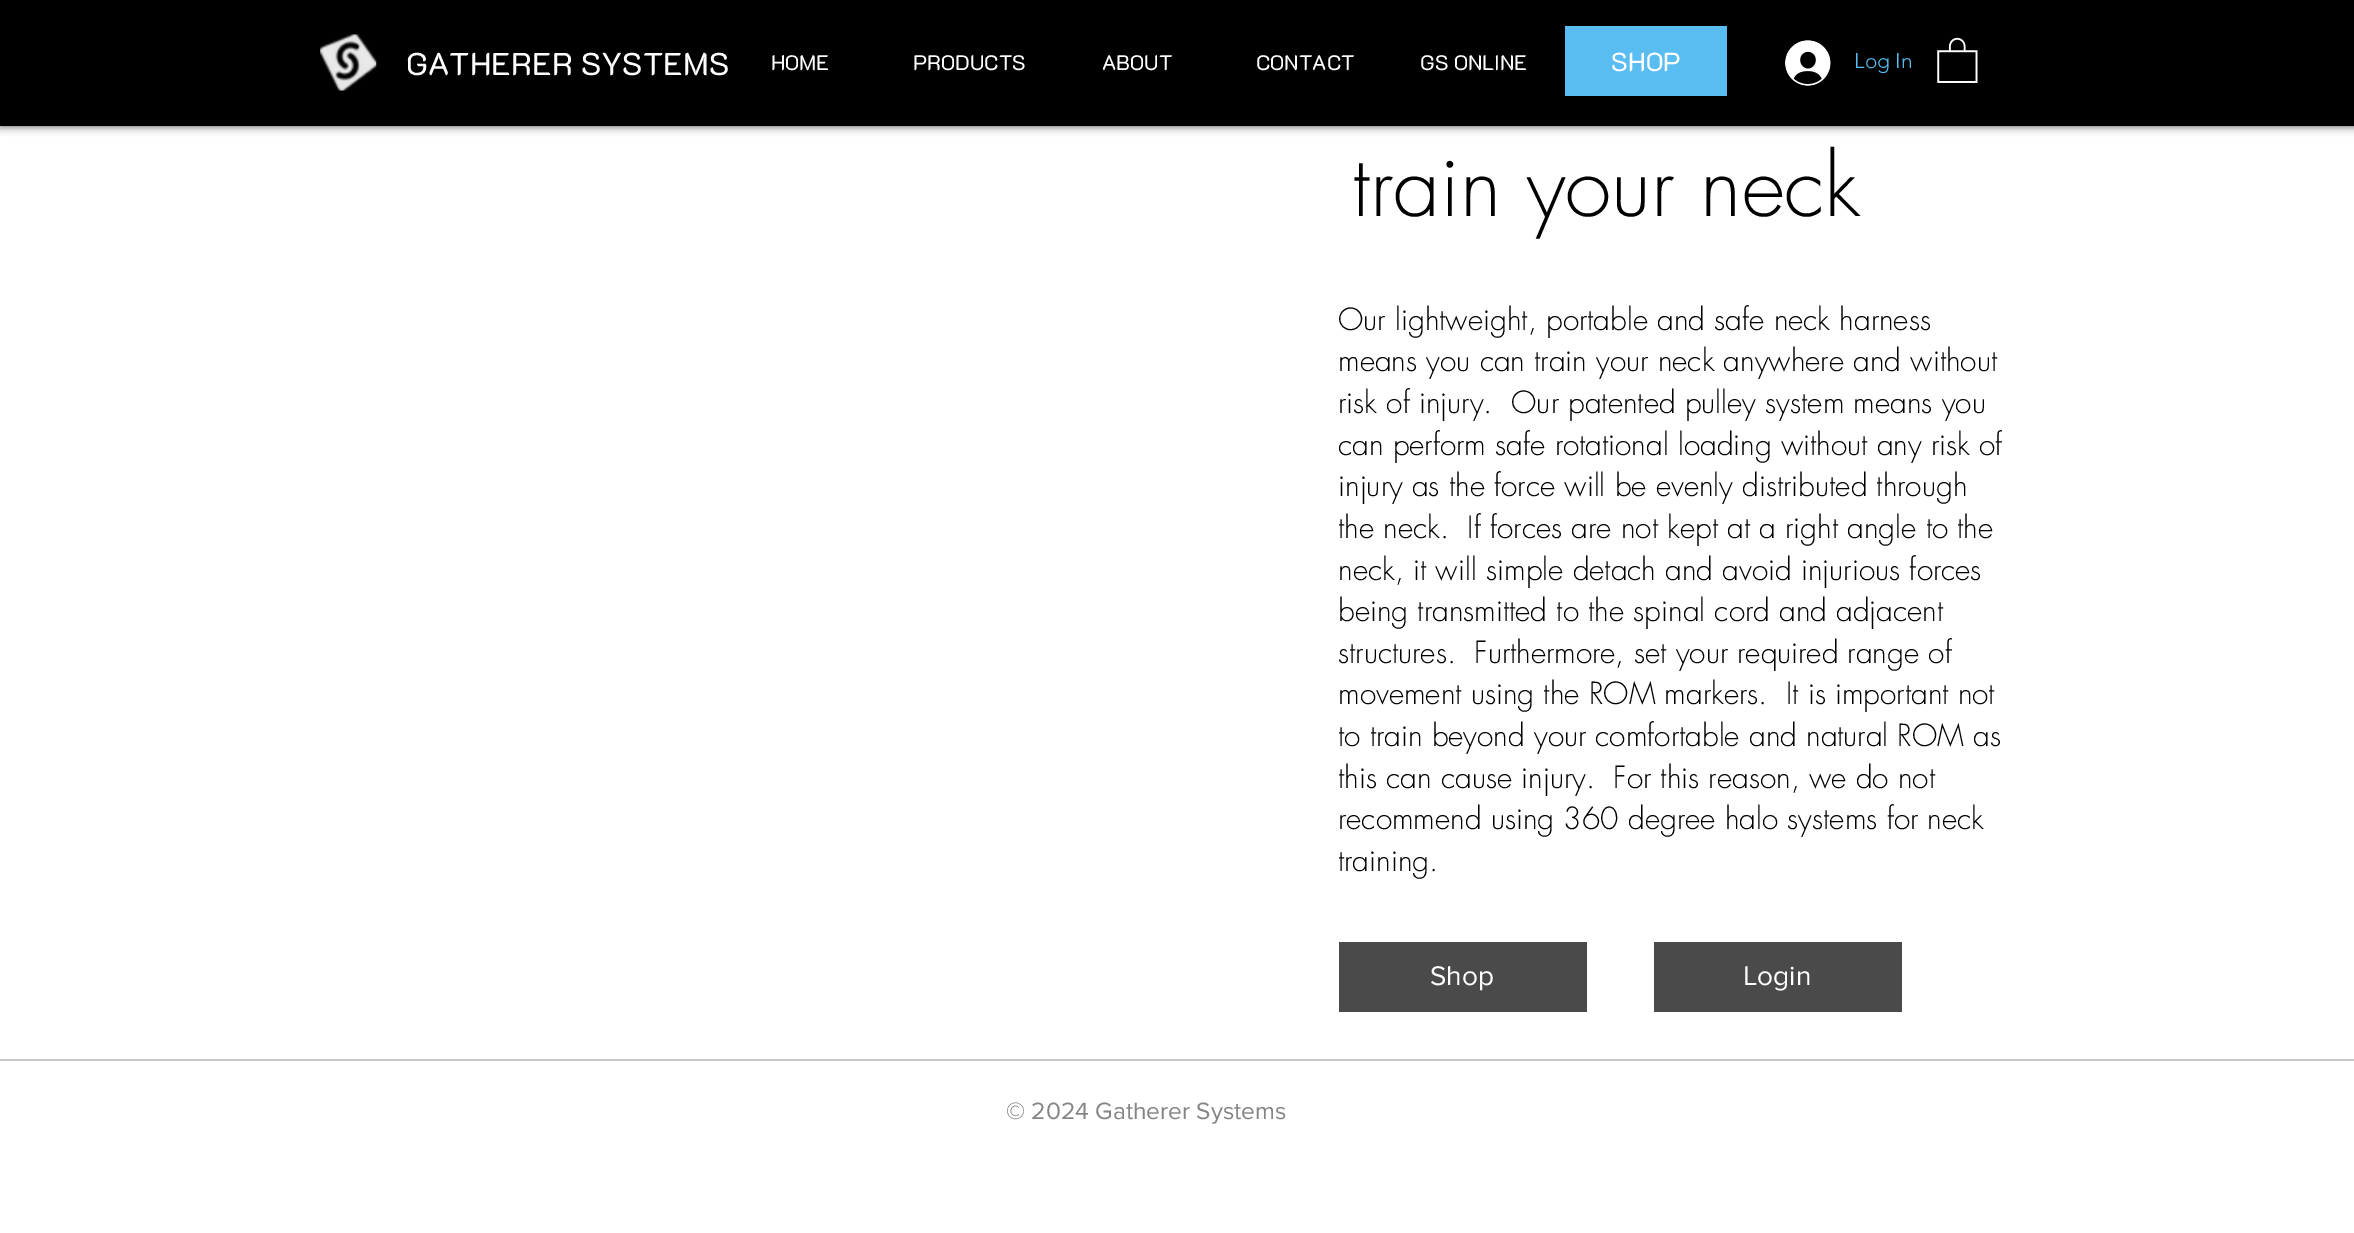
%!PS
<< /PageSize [2354 1233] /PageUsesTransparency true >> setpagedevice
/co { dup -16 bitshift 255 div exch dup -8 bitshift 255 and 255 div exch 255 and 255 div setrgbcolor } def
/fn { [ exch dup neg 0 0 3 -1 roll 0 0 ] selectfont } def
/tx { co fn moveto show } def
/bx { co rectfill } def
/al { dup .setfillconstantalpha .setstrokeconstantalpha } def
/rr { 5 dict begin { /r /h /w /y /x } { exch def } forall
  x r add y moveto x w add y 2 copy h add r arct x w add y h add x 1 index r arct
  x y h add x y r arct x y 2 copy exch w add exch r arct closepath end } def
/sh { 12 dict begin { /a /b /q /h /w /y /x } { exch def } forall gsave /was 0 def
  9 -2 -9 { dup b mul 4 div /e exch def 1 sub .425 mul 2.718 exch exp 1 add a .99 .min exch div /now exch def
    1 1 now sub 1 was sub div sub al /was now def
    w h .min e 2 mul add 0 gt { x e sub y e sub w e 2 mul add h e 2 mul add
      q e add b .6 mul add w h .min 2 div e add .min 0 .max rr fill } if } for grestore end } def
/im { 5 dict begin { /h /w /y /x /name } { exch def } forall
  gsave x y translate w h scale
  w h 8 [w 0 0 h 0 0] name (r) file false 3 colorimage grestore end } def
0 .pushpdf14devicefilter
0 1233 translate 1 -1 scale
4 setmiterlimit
0 0 2354 1233 16#FFFFFF bx
16#000000 co
0 0 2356 126 0 4.5 .7 sh
0 0 2354 126 16#000000 bx
(media/1.raw) 320 34 57 57 im
1565 26 162 70 16#5ABDF2 bx
(media/2.raw) 1785 40 46 46 im
(media/3.raw) 1937 37 41 46 im
1339 942 248 70 16#4A4A4A bx
1654 942 248 70 16#4A4A4A bx
0 1059 2354 2 16#C7C7C7 bx
(GATHERER SYSTEMS) 406 75 /K2D-Regular 31.5 16#FFFFFF tx
(HOME) 771 70 /K2D-Regular 21 16#FFFFFF tx
(PRODUCTS) 913 70 /K2D-Regular 21 16#FFFFFF tx
(ABOUT) 1102 70 /K2D-Regular 21 16#FFFFFF tx
(CONTACT) 1256 70 /K2D-Regular 21 16#FFFFFF tx
(GS ONLINE) 1420 70 /K2D-Regular 21 16#FFFFFF tx
(SHOP) 1611 71 /K2D-Regular 26 16#FFFFFF tx
(Log In) 1854 68 /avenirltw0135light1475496-Light 21 16#5ABDF2 tx
(train your neck) 1352 216 /futura-Light 84 16#000000 tx
(Our lightweight, portable and safe neck harness) 1338 330 /futura-Light 29.75 16#000000 tx
(means you can train your neck anywhere and without) 1338 371 /futura-Light 29.75 16#000000 tx
(risk of injury.  Our patented pulley system means you) 1338 413 /futura-Light 29.75 16#000000 tx
(can perform safe rotational loading without any risk of) 1338 455 /futura-Light 29.75 16#000000 tx
(injury as the force will be evenly distributed through) 1338 496 /futura-Light 29.75 16#000000 tx
(the neck.  If forces are not kept at a right angle to the) 1338 538 /futura-Light 29.75 16#000000 tx
(neck, it will simple detach and avoid injurious forces) 1338 580 /futura-Light 29.75 16#000000 tx
(being transmitted to the spinal cord and adjacent) 1338 621 /futura-Light 29.75 16#000000 tx
(structures.  Furthermore, set your required range of) 1338 663 /futura-Light 29.75 16#000000 tx
(movement using the ROM markers.  It is important not) 1338 704 /futura-Light 29.75 16#000000 tx
(to train beyond your comfortable and natural ROM as) 1338 746 /futura-Light 29.75 16#000000 tx
(this can cause injury.  For this reason, we do not) 1338 788 /futura-Light 29.75 16#000000 tx
(recommend using 360 degree halo systems for neck) 1338 829 /futura-Light 29.75 16#000000 tx
(training.) 1338 871 /futura-Light 29.75 16#000000 tx
(Shop) 1430 985 /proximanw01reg-Regular 28 16#FFFFFF tx
(Login) 1743 985 /proximanw01reg-Regular 28 16#FFFFFF tx
(© 2024 Gatherer Systems) 1006 1119 /proximanw01reg-Regular 24.5 16#858583 tx
.poppdf14devicefilter showpage
